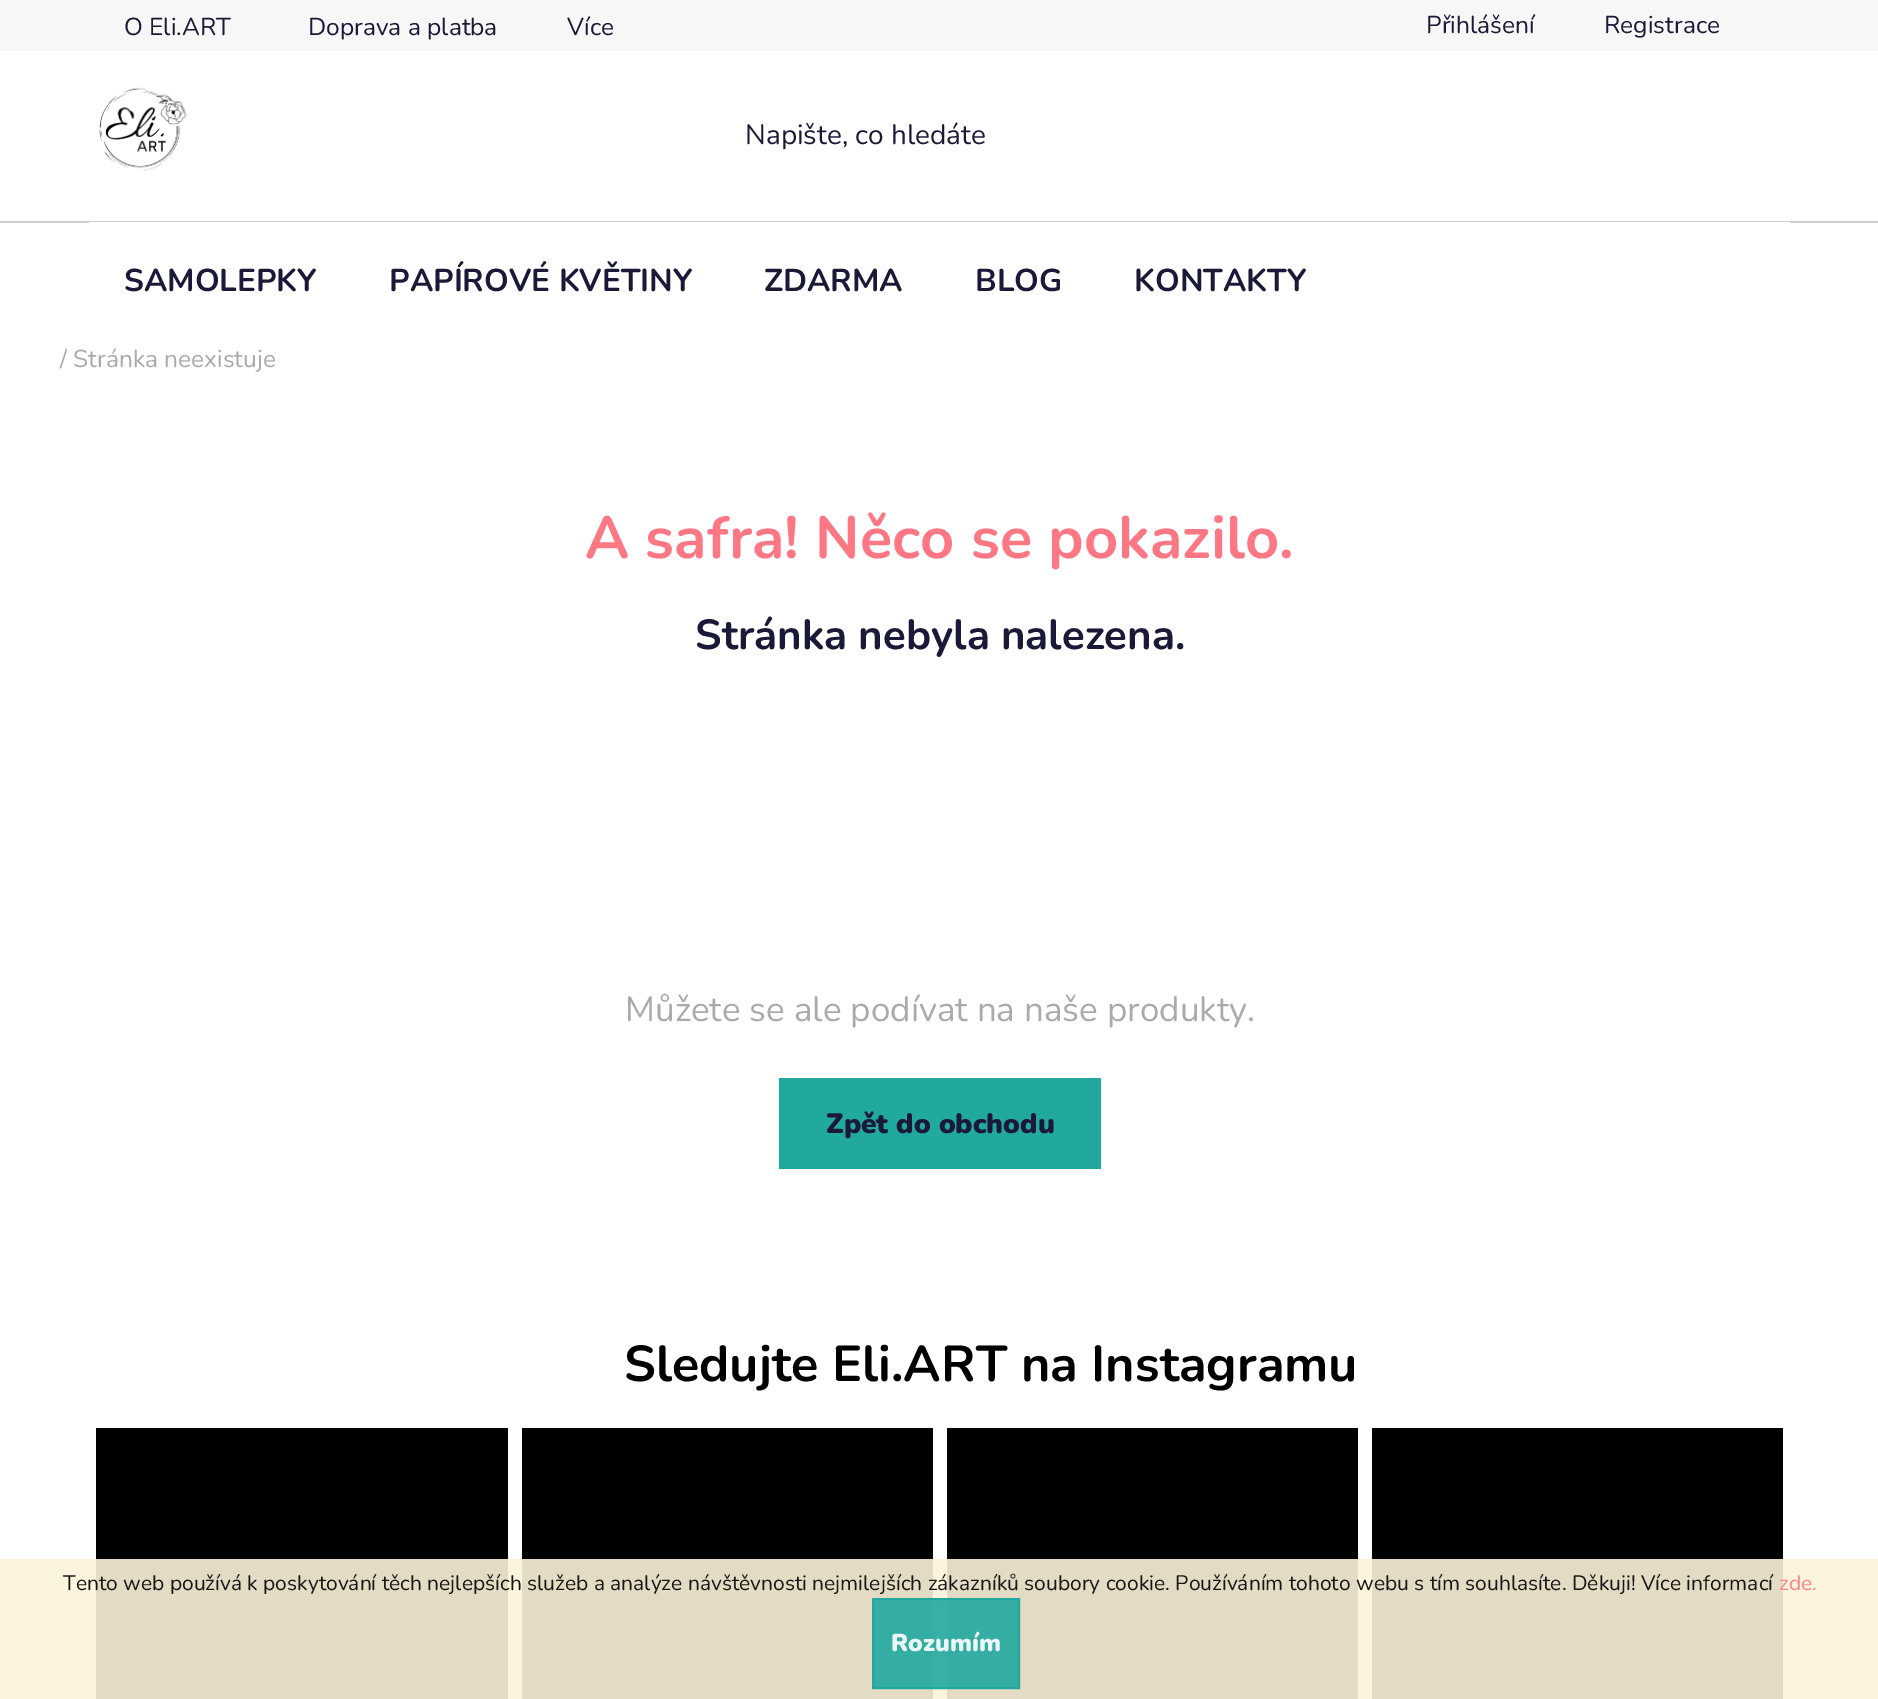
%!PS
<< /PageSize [1878 1699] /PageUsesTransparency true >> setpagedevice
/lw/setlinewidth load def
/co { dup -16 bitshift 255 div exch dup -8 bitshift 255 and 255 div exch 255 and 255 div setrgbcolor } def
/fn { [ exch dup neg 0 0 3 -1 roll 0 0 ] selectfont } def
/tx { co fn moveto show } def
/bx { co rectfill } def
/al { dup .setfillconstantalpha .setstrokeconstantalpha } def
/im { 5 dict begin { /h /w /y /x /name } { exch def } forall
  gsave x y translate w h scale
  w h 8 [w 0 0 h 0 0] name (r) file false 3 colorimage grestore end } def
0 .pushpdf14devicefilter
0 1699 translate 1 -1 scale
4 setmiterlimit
0 0 1878 1699 16#FFFFFF bx
0 1559 1878 140 16#FDF4DE bx
933 1598 14 91 16#37B0A5 bx
0 0 1878 51 16#F7F7F7 bx
(media/1.raw) 99 87 88 84 im
0 221 1878 2 16#CFCFCF bx
89 222 1701 1 16#FFFFFF bx
779 1078 322 91 16#21A89F bx
96 1428 412 131 16#000000 bx
96 1559 412 140 16#E4DBC4 bx
522 1428 411 131 16#000000 bx
522 1559 411 140 16#E4DBC4 bx
872 1598 61 91 16#34ADA3 bx
947 1428 411 131 16#000000 bx
947 1559 411 140 16#E4DBC4 bx
947 1598 73 91 16#34ADA3 bx
1372 1428 411 131 16#000000 bx
1372 1559 411 140 16#E4DBC4 bx
0.9 al
16#21A89F co
2 lw
873 1599 146 89 rectstroke
1 al
(O Eli.ART) 124 35 /Nunito-Regular 24.5 16#1A1937 tx
(Doprava a platba) 308 35 /Nunito-Regular 24.5 16#1A1937 tx
(Více) 567 35 /Nunito-Regular 24.5 16#1A1937 tx
(Přihlášení) 1426 33 /Nunito-Regular 24.5 16#1A1937 tx
(Registrace) 1604 33 /Nunito-Regular 24.5 16#1A1937 tx
(Napište, co hledáte) 745 144 /Nunito-Regular 28 16#1A1937 tx
(SAMOLEPKY) 124 291 /Nunito-Bold 31.5 16#1A1937 tx
(PAPÍROVÉ KVĚTINY) 389 291 /Nunito-Bold 31.5 16#1A1937 tx
(ZDARMA) 764 291 /Nunito-Bold 31.5 16#1A1937 tx
(BLOG) 975 291 /Nunito-Bold 31.5 16#1A1937 tx
(KONTAKTY) 1134 291 /Nunito-Bold 31.5 16#1A1937 tx
(/ Stránka neexistuje) 60 367 /Nunito-Regular 24.5 16#AAAAAA tx
(A safra! Něco se pokazilo.) 585 558 /Nunito-Bold 59.5 16#FD7784 tx
(Stránka nebyla nalezena.) 695 649 /Nunito-Bold 42 16#1A1937 tx
(Můžete se ale podívat na naše produkty.) 625 1021 /Nunito-Regular 35 16#AAAAAA tx
(Zpět do obchodu) 826 1133 /Nunito-Black 28 16#1A1937 tx
(Sledujte Eli.ART na Instagramu) 624 1381 /Nunito-Bold 50.4 16#000000 tx
(Tento web používá k poskytování těch nejlepších služeb a analýze návštěvnosti nejmilejších zákazníků soubory cookie. Používáním tohoto webu s tím souhlasíte. Děkuji! Více informací) 63 1590 /Nunito-Regular 21 16#171614 tx
(zde.) 1779 1590 /Nunito-Regular 21 16#FD838D tx
(Rozumím) 891 1651 /Nunito-Black 24.5 16#EBF7F6 tx
.poppdf14devicefilter showpage
